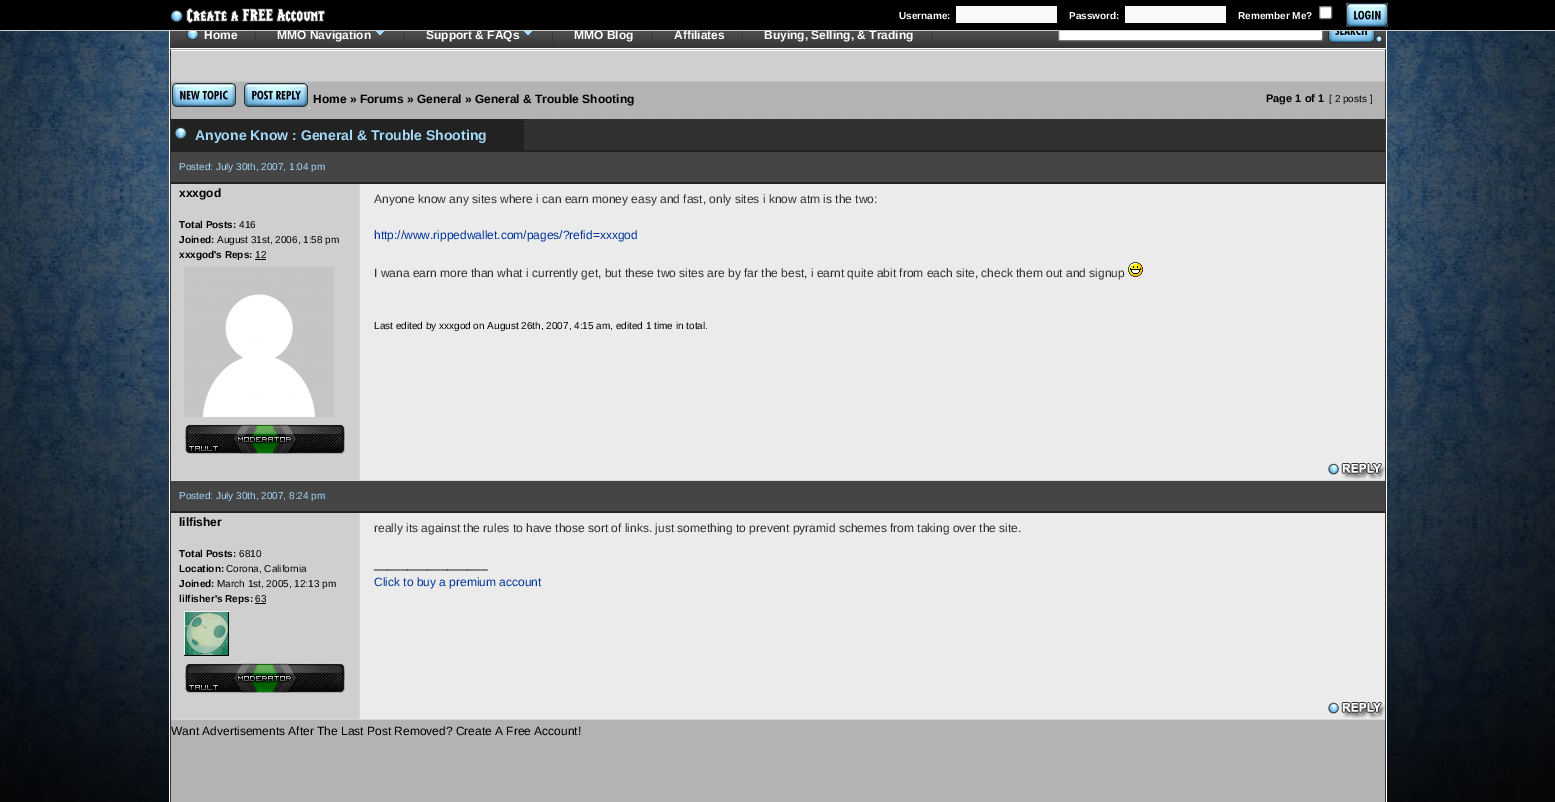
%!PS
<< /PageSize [1555 802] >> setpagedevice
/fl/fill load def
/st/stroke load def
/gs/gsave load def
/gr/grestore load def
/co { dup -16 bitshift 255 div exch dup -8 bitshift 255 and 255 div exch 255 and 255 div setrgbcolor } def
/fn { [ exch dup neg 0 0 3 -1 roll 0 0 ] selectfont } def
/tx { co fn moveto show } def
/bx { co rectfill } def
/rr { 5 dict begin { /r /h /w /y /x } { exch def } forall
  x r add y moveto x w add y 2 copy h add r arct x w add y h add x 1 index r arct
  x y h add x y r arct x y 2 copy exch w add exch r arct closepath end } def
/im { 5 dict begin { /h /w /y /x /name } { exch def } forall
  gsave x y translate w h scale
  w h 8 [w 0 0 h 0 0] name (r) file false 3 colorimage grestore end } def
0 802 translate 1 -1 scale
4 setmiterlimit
0 0 1555 802 16#FFFFFF bx
(media/1.raw) 0 31 1555 771 im
(media/5.raw) 181 31 1194 20 im
1058.5 20.5 264 20 1.5 rr gs fl gr
16#767676 co
st
0 0 1555 30 16#000000 bx
(media/2.raw) 170 7 156 17 im
956 6 101 17 16#F9F9F9 bx
1125 6 101 17 16#F9F9F9 bx
16#FFFFFF co
1319.5 6.5 12 12 1.5 rr gs fl gr
16#767676 co
st
(media/3.raw) 1346 3 42 24 im
(media/4.raw) 169 31 12 20 im
(media/6.raw) 255 31 2 13 im
(media/7.raw) 186 31 13 10 im
(media/6.raw) 404 31 2 13 im
(media/8.raw) 374 31 10 5 im
(media/6.raw) 552 31 2 13 im
(media/8.raw) 522 31 10 5 im
(media/6.raw) 652 31 2 13 im
(media/6.raw) 742 31 2 13 im
(media/6.raw) 932 31 2 13 im
(media/9.raw) 1328 31 47 12 im
(media/10.raw) 1375 31 12 20 im
(media/11.raw) 169 51 2 751 im
(media/12.raw) 1385 51 2 751 im
171 82 1214 720 16#B3B3B3 bx
171 51 1214 30 16#CFCFCF bx
171 81 1214 1 16#C3C4C5 bx
(media/13.raw) 172 83 64 24 im
(media/14.raw) 244 83 66 26 im
171 150 1214 2 16#222222 bx
171 119 353 31 16#222222 bx
(media/15.raw) 174 127 13 12 im
(media/16.raw) 524 119 861 31 im
171 182 1214 2 16#222222 bx
171 152 1214 30 16#454546 bx
171 184 188 296 16#CFCFCF bx
359 184 1 297 16#D1D7DC bx
255 259 11 1 16#000000 bx
(media/17.raw) 184 267 150 150 im
(media/18.raw) 185 424 160 30 im
360 184 1025 296 16#EBEBEB bx
(media/19.raw) 1128 262 15 15 im
(media/20.raw) 1328 463 57 17 im
171 480 1214 1 16#D1D7DC bx
171 511 1214 2 16#222222 bx
171 481 1214 30 16#454546 bx
171 513 188 206 16#CFCFCF bx
359 513 1 207 16#D1D7DC bx
255 603 11 1 16#000000 bx
(media/21.raw) 184 611 45 45 im
(media/18.raw) 185 663 160 30 im
360 513 1025 206 16#EBEBEB bx
(media/20.raw) 1328 702 57 17 im
171 719 1214 1 16#D1D7DC bx
(Username:) 899 19 /LiberationSans-Bold 10 16#FFFFFF tx
(Password:) 1069 19 /LiberationSans-Bold 10 16#FFFFFF tx
(Remember Me?) 1238 19 /LiberationSans-Bold 10 16#FFFFFF tx
(Home) 204 39 /LiberationSans-Bold 12 16#FFFFFF tx
(MMO Navigation) 277 39 /LiberationSans-Bold 12 16#FFFFFF tx
(Support & FAQs) 426 39 /LiberationSans-Bold 12 16#FFFFFF tx
(MMO Blog) 574 39 /LiberationSans-Bold 12 16#FFFFFF tx
(Affiliates) 674 39 /LiberationSans-Bold 12 16#FFFFFF tx
(Buying, Selling, & Trading) 764 39 /LiberationSans-Bold 12 16#FFFFFF tx
0 30 1555 1 16#CCCCCC bx
(Home » Forums » General » General & Trouble Shooting) 313 103 /LiberationSans-Bold 12 16#000000 tx
(Page 1 of 1) 1266 102 /LiberationSans-Bold 11 16#000000 tx
([ 2 posts ]) 1329 102 /LiberationSans-Regular 10 16#000000 tx
(Anyone Know : General & Trouble Shooting) 195 140 /LiberationSans-Bold 14 16#A5DAFA tx
(Posted: July 30th, 2007, 1:04 pm) 179 170 /LiberationSans-Regular 10 16#A5DAFA tx
(xxxgod) 179 197 /LiberationSans-Bold 12 16#000000 tx
(Total Posts:) 179 228 /LiberationSans-Bold 10 16#000000 tx
(416) 239 228 /LiberationSans-Regular 10 16#000000 tx
(Joined:) 179 243 /LiberationSans-Bold 10 16#000000 tx
(August 31st, 2006, 1:58 pm) 217 243 /LiberationSans-Regular 10 16#000000 tx
(xxxgod's Reps:) 179 258 /LiberationSans-Bold 10 16#000000 tx
(12) 255 258 /LiberationSans-Regular 10 16#000000 tx
(Anyone know any sites where i can earn money easy and fast, only sites i know atm is the two:) 374 203 /LiberationSans-Regular 12 16#303030 tx
(http://www.rippedwallet.com/pages/?refid=xxxgod) 374 239 /LiberationSans-Regular 12 16#003399 tx
(I wana earn more than what i currently get, but these two sites are by far the best, i earnt quite abit from each site, check them out and signup) 374 277 /LiberationSans-Regular 12 16#303030 tx
(Last edited by xxxgod on August 26th, 2007, 4:15 am, edited 1 time in total.) 374 329 /LiberationSans-Regular 10 16#000000 tx
(Posted: July 30th, 2007, 8:24 pm) 179 499 /LiberationSans-Regular 10 16#A5DAFA tx
(lilfisher) 179 526 /LiberationSans-Bold 12 16#000000 tx
(Total Posts:) 179 557 /LiberationSans-Bold 10 16#000000 tx
(6810) 239 557 /LiberationSans-Regular 10 16#000000 tx
(Location:) 179 572 /LiberationSans-Bold 10 16#000000 tx
(Corona, California) 226 572 /LiberationSans-Regular 10 16#000000 tx
(Joined:) 179 587 /LiberationSans-Bold 10 16#000000 tx
(March 1st, 2005, 12:13 pm) 217 587 /LiberationSans-Regular 10 16#000000 tx
(lilfisher's Reps:) 179 602 /LiberationSans-Bold 10 16#000000 tx
(63) 255 602 /LiberationSans-Regular 10 16#000000 tx
(really its against the rules to have those sort of links. just something to prevent pyramid schemes from taking over the site.) 374 532 /LiberationSans-Regular 12 16#303030 tx
(_________________) 374 568 /LiberationSans-Regular 12 16#303030 tx
(Click to buy a premium account) 374 586 /LiberationSans-Regular 12 16#003399 tx
(Want Advertisements After The Last Post Removed? Create A Free Account!) 171 735 /LiberationSans-Regular 12 16#000000 tx
showpage
